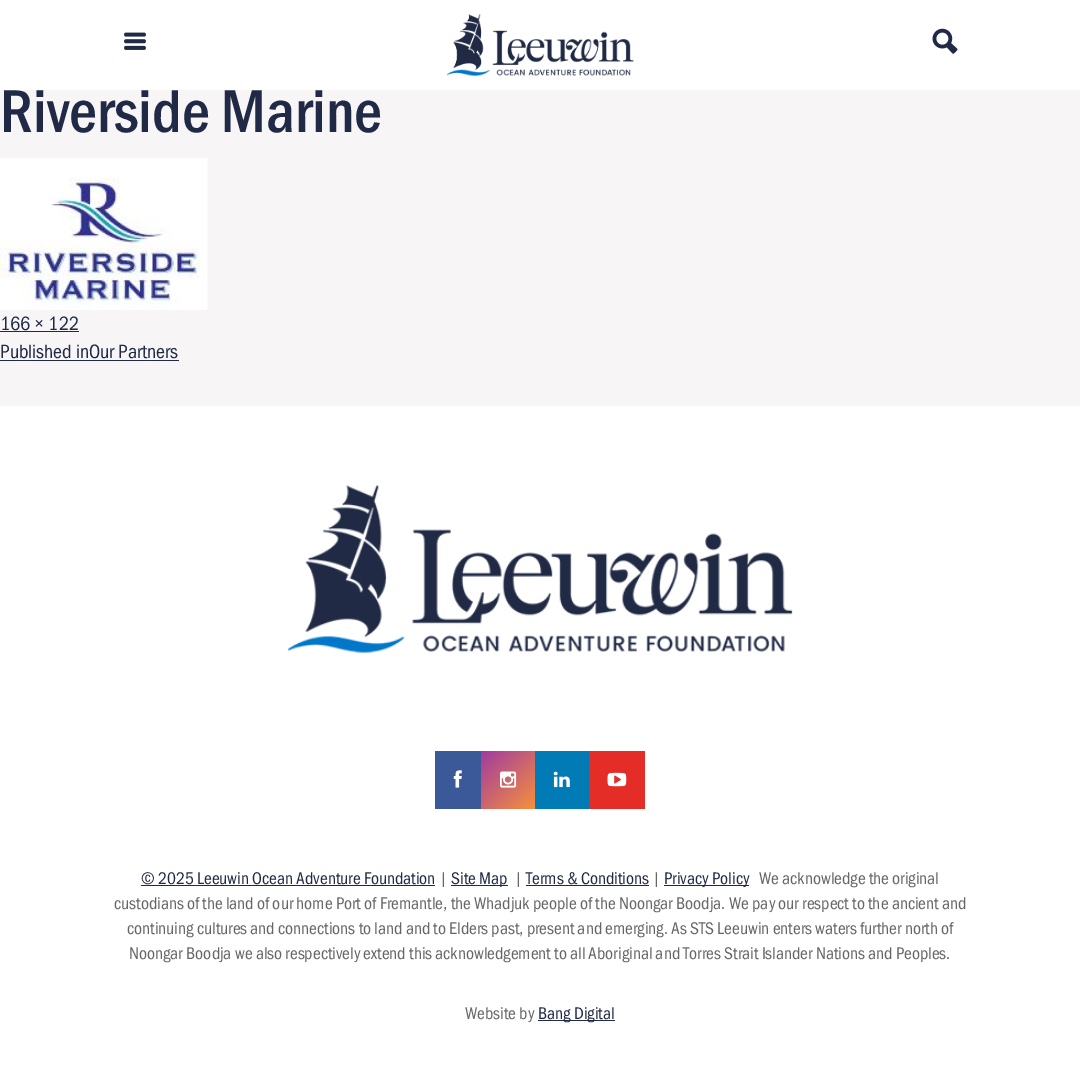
%!PS
<< /PageSize [1080 1075] >> setpagedevice
/mt/moveto load def
/li/lineto load def
/cp/closepath load def
/gs/gsave load def
/gr/grestore load def
/co { dup -16 bitshift 255 div exch dup -8 bitshift 255 and 255 div exch 255 and 255 div setrgbcolor } def
/fn { [ exch dup neg 0 0 3 -1 roll 0 0 ] selectfont } def
/tx { co fn moveto show } def
/bx { co rectfill } def
/im { 5 dict begin { /h /w /y /x /name } { exch def } forall
  gsave x y translate w h scale
  w h 8 [w 0 0 h 0 0] name (r) file false 3 colorimage grestore end } def
0 1075 translate 1 -1 scale
4 setmiterlimit
0 0 1080 1075 16#F7F5F5 bx
0 0 1080 90 16#FFFFFF bx
(media/1.raw) 124 32 22 18 im
(media/2.raw) 446 14 188 63 im
(media/3.raw) 932 28 26 26 im
(media/4.raw) 0 158 208 152 im
0 331 79 1 16#202945 bx
0 360 179 1 16#202945 bx
0 406 1080 669 16#FFFFFF bx
(media/5.raw) 287 485 506 168 im
435 751 46 58 16#3B5998 bx
(media/6.raw) 453 770 9 18 im
gs 481 751 mt 535 751 li 535 809 li 481 809 li cp clip newpath
<< /ShadingType 2 /ColorSpace /DeviceRGB /Coords [480 752 536 808] /Extend [true true] /Function << /FunctionType 2 /Domain [0 1] /C0 [.627 .231 .627] /C1 [.969 .565 .231] /N 1 >> >> shfill gr
(media/7.raw) 500 771 17 17 im
535 751 54 58 16#007BB5 bx
(media/8.raw) 553 771 17 17 im
589 751 56 58 16#E52D27 bx
(media/9.raw) 607 772 20 15 im
141 885 294 1 16#202945 bx
451 885 57 1 16#202945 bx
526 885 123 1 16#202945 bx
664 885 85 1 16#202945 bx
538 1020 77 1 16#202945 bx
(Riverside Marine) 0 132 /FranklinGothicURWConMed-Regular 62.5 16#202945 tx
(166 × 122) 0 330 /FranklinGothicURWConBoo-Regular 20 16#202945 tx
(Published inOur Partners) 0 358 /FranklinGothicURWConBoo-Regular 20 16#202945 tx
(© 2025 Leeuwin Ocean Adventure Foundation) 141 884 /FranklinGothicURWConBoo-Regular 17.5 16#202945 tx
(|) 439 884 /FranklinGothicURWConBoo-Regular 17.5 16#666666 tx
(Site Map) 451 884 /FranklinGothicURWConBoo-Regular 17.5 16#202945 tx
(|) 514 884 /FranklinGothicURWConBoo-Regular 17.5 16#666666 tx
(Terms & Conditions) 526 884 /FranklinGothicURWConBoo-Regular 17.5 16#202945 tx
(|) 652 884 /FranklinGothicURWConBoo-Regular 17.5 16#666666 tx
(Privacy Policy) 664 884 /FranklinGothicURWConBoo-Regular 17.5 16#202945 tx
(We acknowledge the original) 759 884 /FranklinGothicURWConBoo-Regular 17.5 16#666666 tx
(custodians of the land of our home Port of Fremantle, the Whadjuk people of the Noongar Boodja. We pay our respect to the ancient and) 114 909 /FranklinGothicURWConBoo-Regular 17.5 16#666666 tx
(continuing cultures and connections to land and to Elders past, present and emerging. As STS Leeuwin enters waters further north of) 127 934 /FranklinGothicURWConBoo-Regular 17.5 16#666666 tx
(Noongar Boodja we also respectively extend this acknowledgement to all Aboriginal and Torres Strait Islander Nations and Peoples.) 129 959 /FranklinGothicURWConBoo-Regular 17.5 16#666666 tx
(Website by) 465 1019 /FranklinGothicURWConBoo-Regular 17.5 16#666666 tx
(Bang Digital) 538 1019 /FranklinGothicURWConBoo-Regular 17.5 16#202945 tx
showpage
